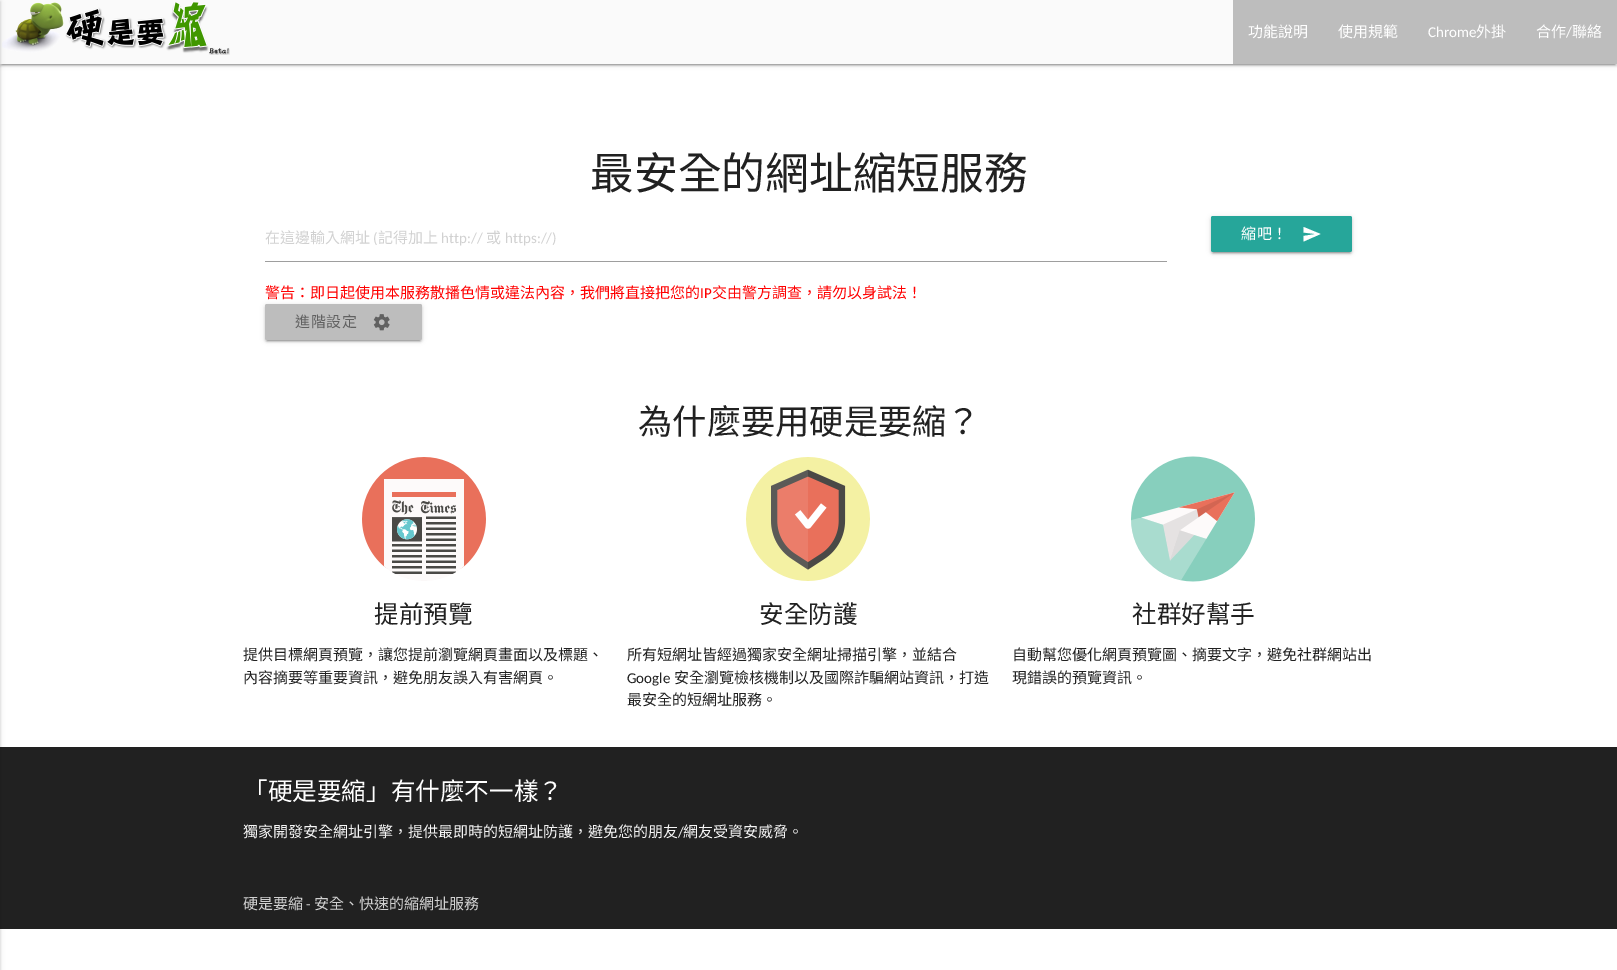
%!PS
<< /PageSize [1617 970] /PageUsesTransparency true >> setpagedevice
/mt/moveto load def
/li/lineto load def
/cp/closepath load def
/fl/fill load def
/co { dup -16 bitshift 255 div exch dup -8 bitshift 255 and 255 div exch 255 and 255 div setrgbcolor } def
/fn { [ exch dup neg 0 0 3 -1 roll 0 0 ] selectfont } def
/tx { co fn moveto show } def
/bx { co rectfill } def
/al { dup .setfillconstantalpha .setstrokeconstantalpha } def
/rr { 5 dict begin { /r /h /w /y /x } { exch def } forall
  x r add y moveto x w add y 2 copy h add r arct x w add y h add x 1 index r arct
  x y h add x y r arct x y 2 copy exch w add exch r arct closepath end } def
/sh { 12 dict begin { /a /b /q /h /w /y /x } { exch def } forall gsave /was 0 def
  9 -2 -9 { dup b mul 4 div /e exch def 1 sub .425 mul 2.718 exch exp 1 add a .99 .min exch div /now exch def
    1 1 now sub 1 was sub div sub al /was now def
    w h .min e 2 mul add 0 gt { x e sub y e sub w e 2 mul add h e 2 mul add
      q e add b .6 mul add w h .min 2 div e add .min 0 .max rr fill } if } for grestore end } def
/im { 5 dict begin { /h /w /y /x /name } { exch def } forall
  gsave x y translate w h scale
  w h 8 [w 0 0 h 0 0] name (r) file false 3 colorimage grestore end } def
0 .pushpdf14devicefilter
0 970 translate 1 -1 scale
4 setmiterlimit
0 0 1617 970 16#FFFFFF bx
16#000000 co
2 5 1613 60 0 .5 .2 sh
0 1 1617 64 0 2.5 .12 sh
0 2 1617 64 0 1 .14 sh
0 0 1233 64 16#FAFAFA bx
(media/1.raw) 2 2 228 53 im
0 747 1617 182 16#212121 bx
16#000000 co
-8 1 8 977 0 2.5 .12 sh
-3 2 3 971 0 1 .14 sh
1233 0 384 64 16#BDBDBD bx
265 261 902 1 16#9E9E9E bx
16#000000 co
1213 221 137 32 0 .5 .2 sh
1211 217 141 36 2 2.5 .12 sh
1211 218 141 36 2 1 .14 sh
16#26A69A co
1211 216 141 36 2 rr fl
16#FFFFFF co
1303.5 241.5 mt 1303.5 236 li 1316 234 li 1303.5 232.5 li 1303.5 227 li 1320.5 234 li cp fl
16#000000 co
267 309 153 32 0 .5 .2 sh
265 305 157 36 2 2.5 .12 sh
265 306 157 36 2 1 .14 sh
16#BDBDBD co
265 304 157 36 2 rr fl
(media/2.raw) 373 314 17 17 im
(media/3.raw) 362 457 124 124 im
(media/4.raw) 746 457 124 124 im
(media/5.raw) 1131 456 124 126 im
(功能說明) 1248 37 /NotoSansCJKTC-Regular 15 16#FFFFFF tx
(使用規範) 1338 37 /NotoSansCJKTC-Regular 15 16#FFFFFF tx
(Chrome) 1428 37 /Carlito-Regular 15 16#FFFFFF tx
(外掛) 1476 37 /NotoSansCJKTC-Regular 15 16#FFFFFF tx
(合作) 1536 37 /NotoSansCJKTC-Regular 15 16#FFFFFF tx
(/) 1566 37 /Carlito-Regular 15 16#FFFFFF tx
(聯絡) 1572 37 /NotoSansCJKTC-Regular 15 16#FFFFFF tx
(最安全的網址縮短服務) 590 189 /NotoSansCJKTC-Regular 43.75 16#212121 tx
(在這邊輸入網址) 265 243 /NotoSansCJKTC-Regular 15 16#D1D1D1 tx
(\() 373 243 /Carlito-Regular 15 16#D1D1D1 tx
(記得加上) 378 243 /NotoSansCJKTC-Regular 15 16#D1D1D1 tx
(http://) 441 243 /Carlito-Regular 15 16#D1D1D1 tx
(或) 486 243 /NotoSansCJKTC-Regular 15 16#D1D1D1 tx
(https://\)) 505 243 /Carlito-Regular 15 16#D1D1D1 tx
/NotoSansCJKTC-Regular 15 fn
16#FFFFFF co
1241 239 mt .5 0 (縮吧！) ashow
(警告：即日起使用本服務散播色情或違法內容，我們將直接把您的) 265 298 /NotoSansCJKTC-Regular 15 16#FF0000 tx
(IP) 700 298 /Carlito-Regular 15 16#FF0000 tx
(交由警方調查，請勿以身試法！) 712 298 /NotoSansCJKTC-Regular 15 16#FF0000 tx
16#616161 co
295 327 mt .5 0 (進階設定) ashow
(為什麼要用硬是要縮？) 638 434 /NotoSansCJKTC-Regular 34.25 16#212121 tx
(提前預覽) 374 623 /NotoSansCJKTC-Regular 24.6 16#212121 tx
(提供目標網頁預覽，讓您提前瀏覽網頁畫面以及標題、) 243 660 /NotoSansCJKTC-Regular 15 16#212121 tx
(內容摘要等重要資訊，避免朋友誤入有害網頁。) 243 683 /NotoSansCJKTC-Regular 15 16#212121 tx
(安全防護) 759 623 /NotoSansCJKTC-Regular 24.6 16#212121 tx
(所有短網址皆經過獨家安全網址掃描引擎，並結合) 627 660 /NotoSansCJKTC-Regular 15 16#212121 tx
(Google) 627 683 /Carlito-Regular 15 16#212121 tx
(安全瀏覽檢核機制以及國際詐騙網站資訊，打造) 674 683 /NotoSansCJKTC-Regular 15 16#212121 tx
(最安全的短網址服務。) 627 705 /NotoSansCJKTC-Regular 15 16#212121 tx
(社群好幫手) 1132 623 /NotoSansCJKTC-Regular 24.6 16#212121 tx
(自動幫您優化網頁預覽圖、摘要文字，避免社群網站出) 1012 660 /NotoSansCJKTC-Regular 15 16#212121 tx
(現錯誤的預覽資訊。) 1012 683 /NotoSansCJKTC-Regular 15 16#212121 tx
(「硬是要縮」有什麼不一樣？) 243 800 /NotoSansCJKTC-Regular 24.6 16#FFFFFF tx
(獨家開發安全網址引擎，提供最即時的短網址防護，避免您的朋友) 243 837 /NotoSansCJKTC-Regular 15 16#F5F5F5 tx
(/) 678 837 /Carlito-Regular 15 16#F5F5F5 tx
(網友受資安威脅。) 683 837 /NotoSansCJKTC-Regular 15 16#F5F5F5 tx
(硬是要縮) 243 909 /NotoSansCJKTC-Regular 15 16#D1D1D1 tx
(-) 306 909 /Carlito-Regular 15 16#D1D1D1 tx
(安全、快速的縮網址服務) 314 909 /NotoSansCJKTC-Regular 15 16#D1D1D1 tx
.poppdf14devicefilter showpage
